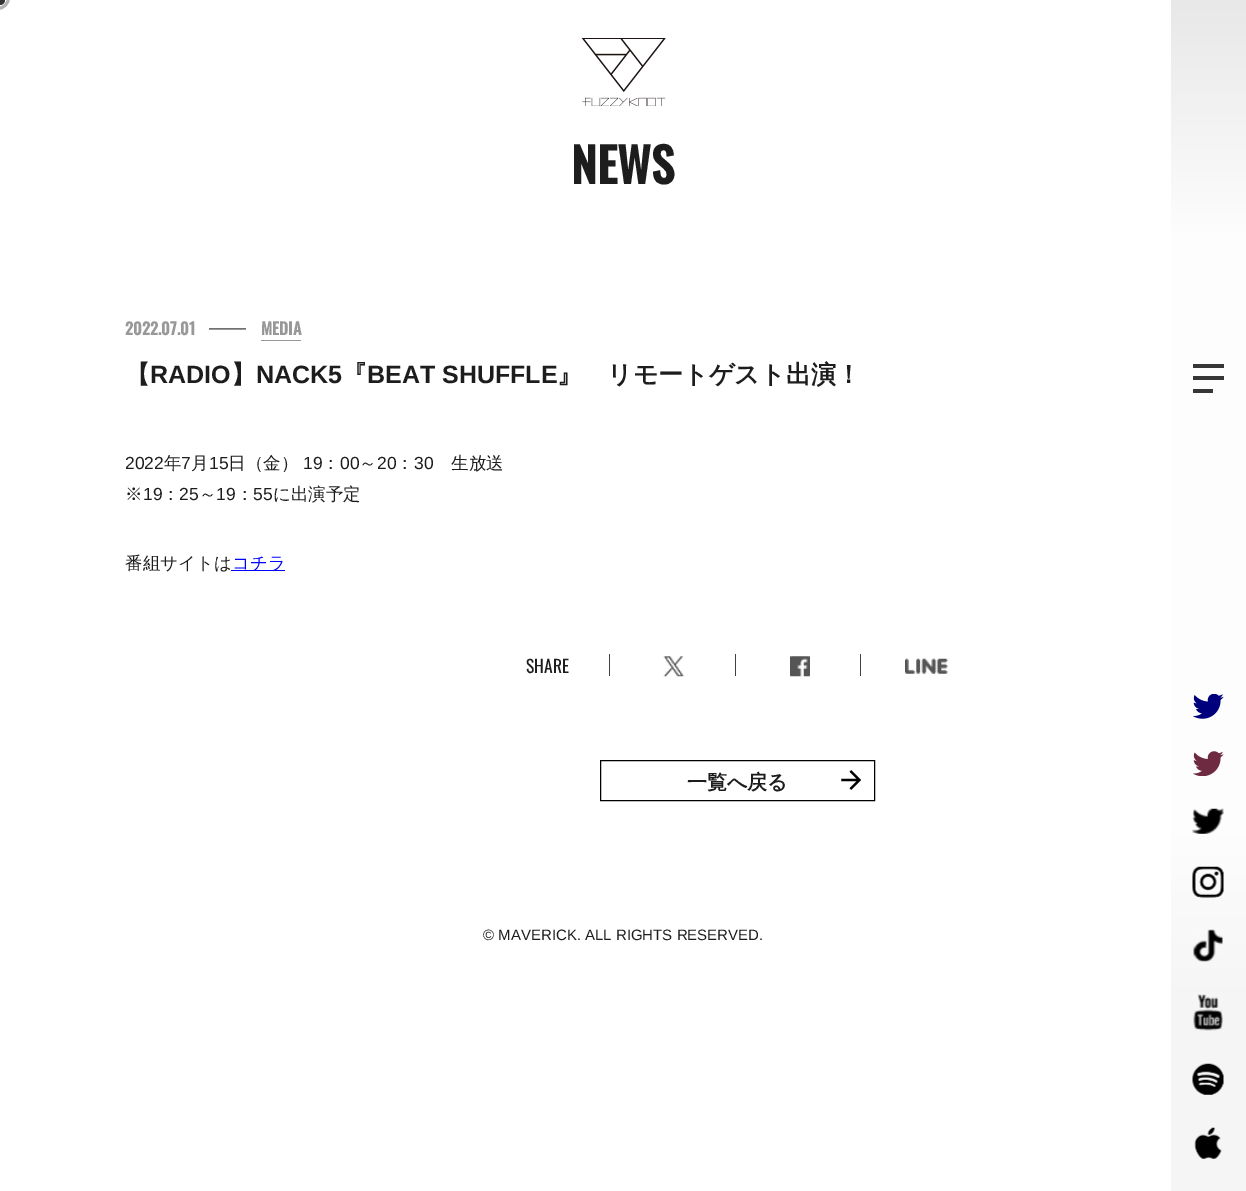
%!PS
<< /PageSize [1246 1191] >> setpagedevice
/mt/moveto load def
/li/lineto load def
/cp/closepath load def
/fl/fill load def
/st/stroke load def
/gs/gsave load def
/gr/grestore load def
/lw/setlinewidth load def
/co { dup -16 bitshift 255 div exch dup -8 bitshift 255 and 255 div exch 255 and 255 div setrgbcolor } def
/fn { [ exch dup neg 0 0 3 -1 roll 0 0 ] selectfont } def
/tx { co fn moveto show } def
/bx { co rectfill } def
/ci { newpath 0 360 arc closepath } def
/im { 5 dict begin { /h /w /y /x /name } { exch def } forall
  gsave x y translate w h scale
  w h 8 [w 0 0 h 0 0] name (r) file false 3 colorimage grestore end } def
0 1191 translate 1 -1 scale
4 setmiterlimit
0 0 1246 1191 16#FFFFFF bx
16#B3B3B3 co
3 lw
-2.5 -2.5 11 ci st
16#333333 co
0 0 5 ci fl
(media/1.raw) 581 38 85 68 im
209 329 37 1 16#989898 bx
261 340 40 1 16#989898 bx
209 328 37 1 16#707070 bx
231 570 54 1 16#0000FF bx
609 654 1 22 16#414141 bx
735 654 1 22 16#414141 bx
(media/2.raw) 663 656 21 21 im
860 654 1 22 16#414141 bx
(media/3.raw) 790 656 20 21 im
(media/4.raw) 905 658 43 16 im
16#000000 co
1 lw
600.5 760.5 274 40 rectstroke
(media/5.raw) 841 770 20 20 im
gs 1171 0 mt 1246 0 li 1246 1191 li 1171 1191 li cp clip newpath
<< /ShadingType 2 /ColorSpace /DeviceRGB /Coords [1209 0 1209 1191] /Extend [true true] /Function << /FunctionType 3 /Domain [0 1] /Functions [<< /FunctionType 2 /Domain [0 1] /C0 [.91 .91 .91] /C1 [.992 .992 .992] /N 1 >> << /FunctionType 2 /Domain [0 1] /C0 [.992 .992 .992] /C1 [.992 .992 .992] /N 1 >> << /FunctionType 2 /Domain [0 1] /C0 [.992 .992 .992] /C1 [.961 .961 .961] /N 1 >> << /FunctionType 2 /Domain [0 1] /C0 [.961 .961 .961] /C1 [.961 .961 .961] /N 1 >>] /Bounds [.2 .7 .85] /Encode [0 1 0 1 0 1 0 1] >> >> shfill gr
1193 364 31 4 16#363636 bx
1193 376 31 4 16#363636 bx
1193 389 20 4 16#363636 bx
(media/6.raw) 1193 694 31 25 im
(media/7.raw) 1193 751 31 25 im
(media/8.raw) 1192 808 32 26 im
(media/9.raw) 1192 866 32 32 im
(media/10.raw) 1193 929 30 33 im
(media/11.raw) 1193 994 30 37 im
(media/12.raw) 1192 1063 32 32 im
(media/13.raw) 1194 1127 28 32 im
(NEWS) 571 184 /Oswald-Bold 47.5 16#1D1D1D tx
(2022.07.01) 125 335 /Oswald-Bold 16.25 16#989898 tx
(MEDIA) 261 335 /Oswald-Bold 16.25 16#989898 tx
(【) 125 383 /WenQuanYiZenHei-Bold 25 16#1D1D1D tx
(RADIO) 150 383 /LiberationSans-Bold 25 16#1D1D1D tx
(】) 231 383 /WenQuanYiZenHei-Bold 25 16#1D1D1D tx
(NACK5) 256 383 /LiberationSans-Bold 25 16#1D1D1D tx
(『) 342 383 /WenQuanYiZenHei-Bold 25 16#1D1D1D tx
(BEAT SHUFFLE) 367 383 /LiberationSans-Bold 25 16#1D1D1D tx
(』　リモートゲスト出演！) 557 383 /WenQuanYiZenHei-Bold 25 16#1D1D1D tx
(2022) 125 469 /LiberationSans-Regular 17.5 16#1D1D1D tx
(年) 164 469 /WenQuanYiZenHei-Medium 17.5 16#1D1D1D tx
(7) 181 469 /LiberationSans-Regular 17.5 16#1D1D1D tx
(月) 191 469 /WenQuanYiZenHei-Medium 17.5 16#1D1D1D tx
(15) 209 469 /LiberationSans-Regular 17.5 16#1D1D1D tx
(日（金）) 228 469 /WenQuanYiZenHei-Medium 17.5 16#1D1D1D tx
(19) 303 469 /LiberationSans-Regular 17.5 16#1D1D1D tx
(：) 322 469 /WenQuanYiZenHei-Medium 17.5 16#1D1D1D tx
(00) 340 469 /LiberationSans-Regular 17.5 16#1D1D1D tx
(～) 359 469 /WenQuanYiZenHei-Medium 17.5 16#1D1D1D tx
(20) 377 469 /LiberationSans-Regular 17.5 16#1D1D1D tx
(：) 396 469 /WenQuanYiZenHei-Medium 17.5 16#1D1D1D tx
(30) 414 469 /LiberationSans-Regular 17.5 16#1D1D1D tx
(生放送) 451 469 /WenQuanYiZenHei-Medium 17.5 16#1D1D1D tx
(※) 125 500 /WenQuanYiZenHei-Medium 17.5 16#1D1D1D tx
(19) 143 500 /LiberationSans-Regular 17.5 16#1D1D1D tx
(：) 162 500 /WenQuanYiZenHei-Medium 17.5 16#1D1D1D tx
(25) 179 500 /LiberationSans-Regular 17.5 16#1D1D1D tx
(～) 199 500 /WenQuanYiZenHei-Medium 17.5 16#1D1D1D tx
(19) 216 500 /LiberationSans-Regular 17.5 16#1D1D1D tx
(：) 236 500 /WenQuanYiZenHei-Medium 17.5 16#1D1D1D tx
(55) 253 500 /LiberationSans-Regular 17.5 16#1D1D1D tx
(に出演予定) 273 500 /WenQuanYiZenHei-Medium 17.5 16#1D1D1D tx
(番組サイトは) 125 569 /WenQuanYiZenHei-Medium 17.5 16#1D1D1D tx
(コチラ) 232 569 /WenQuanYiZenHei-Medium 17.5 16#0000FF tx
(SHARE) 526 673 /Oswald-Regular 17.5 16#1D1D1D tx
(一覧へ戻る) 687 789 /WenQuanYiZenHei-Bold 20 16#1D1D1D tx
(© MAVERICK. ALL RIGHTS RESERVED.) 483 940 /LiberationSans-Regular 15 16#1D1D1D tx
showpage
